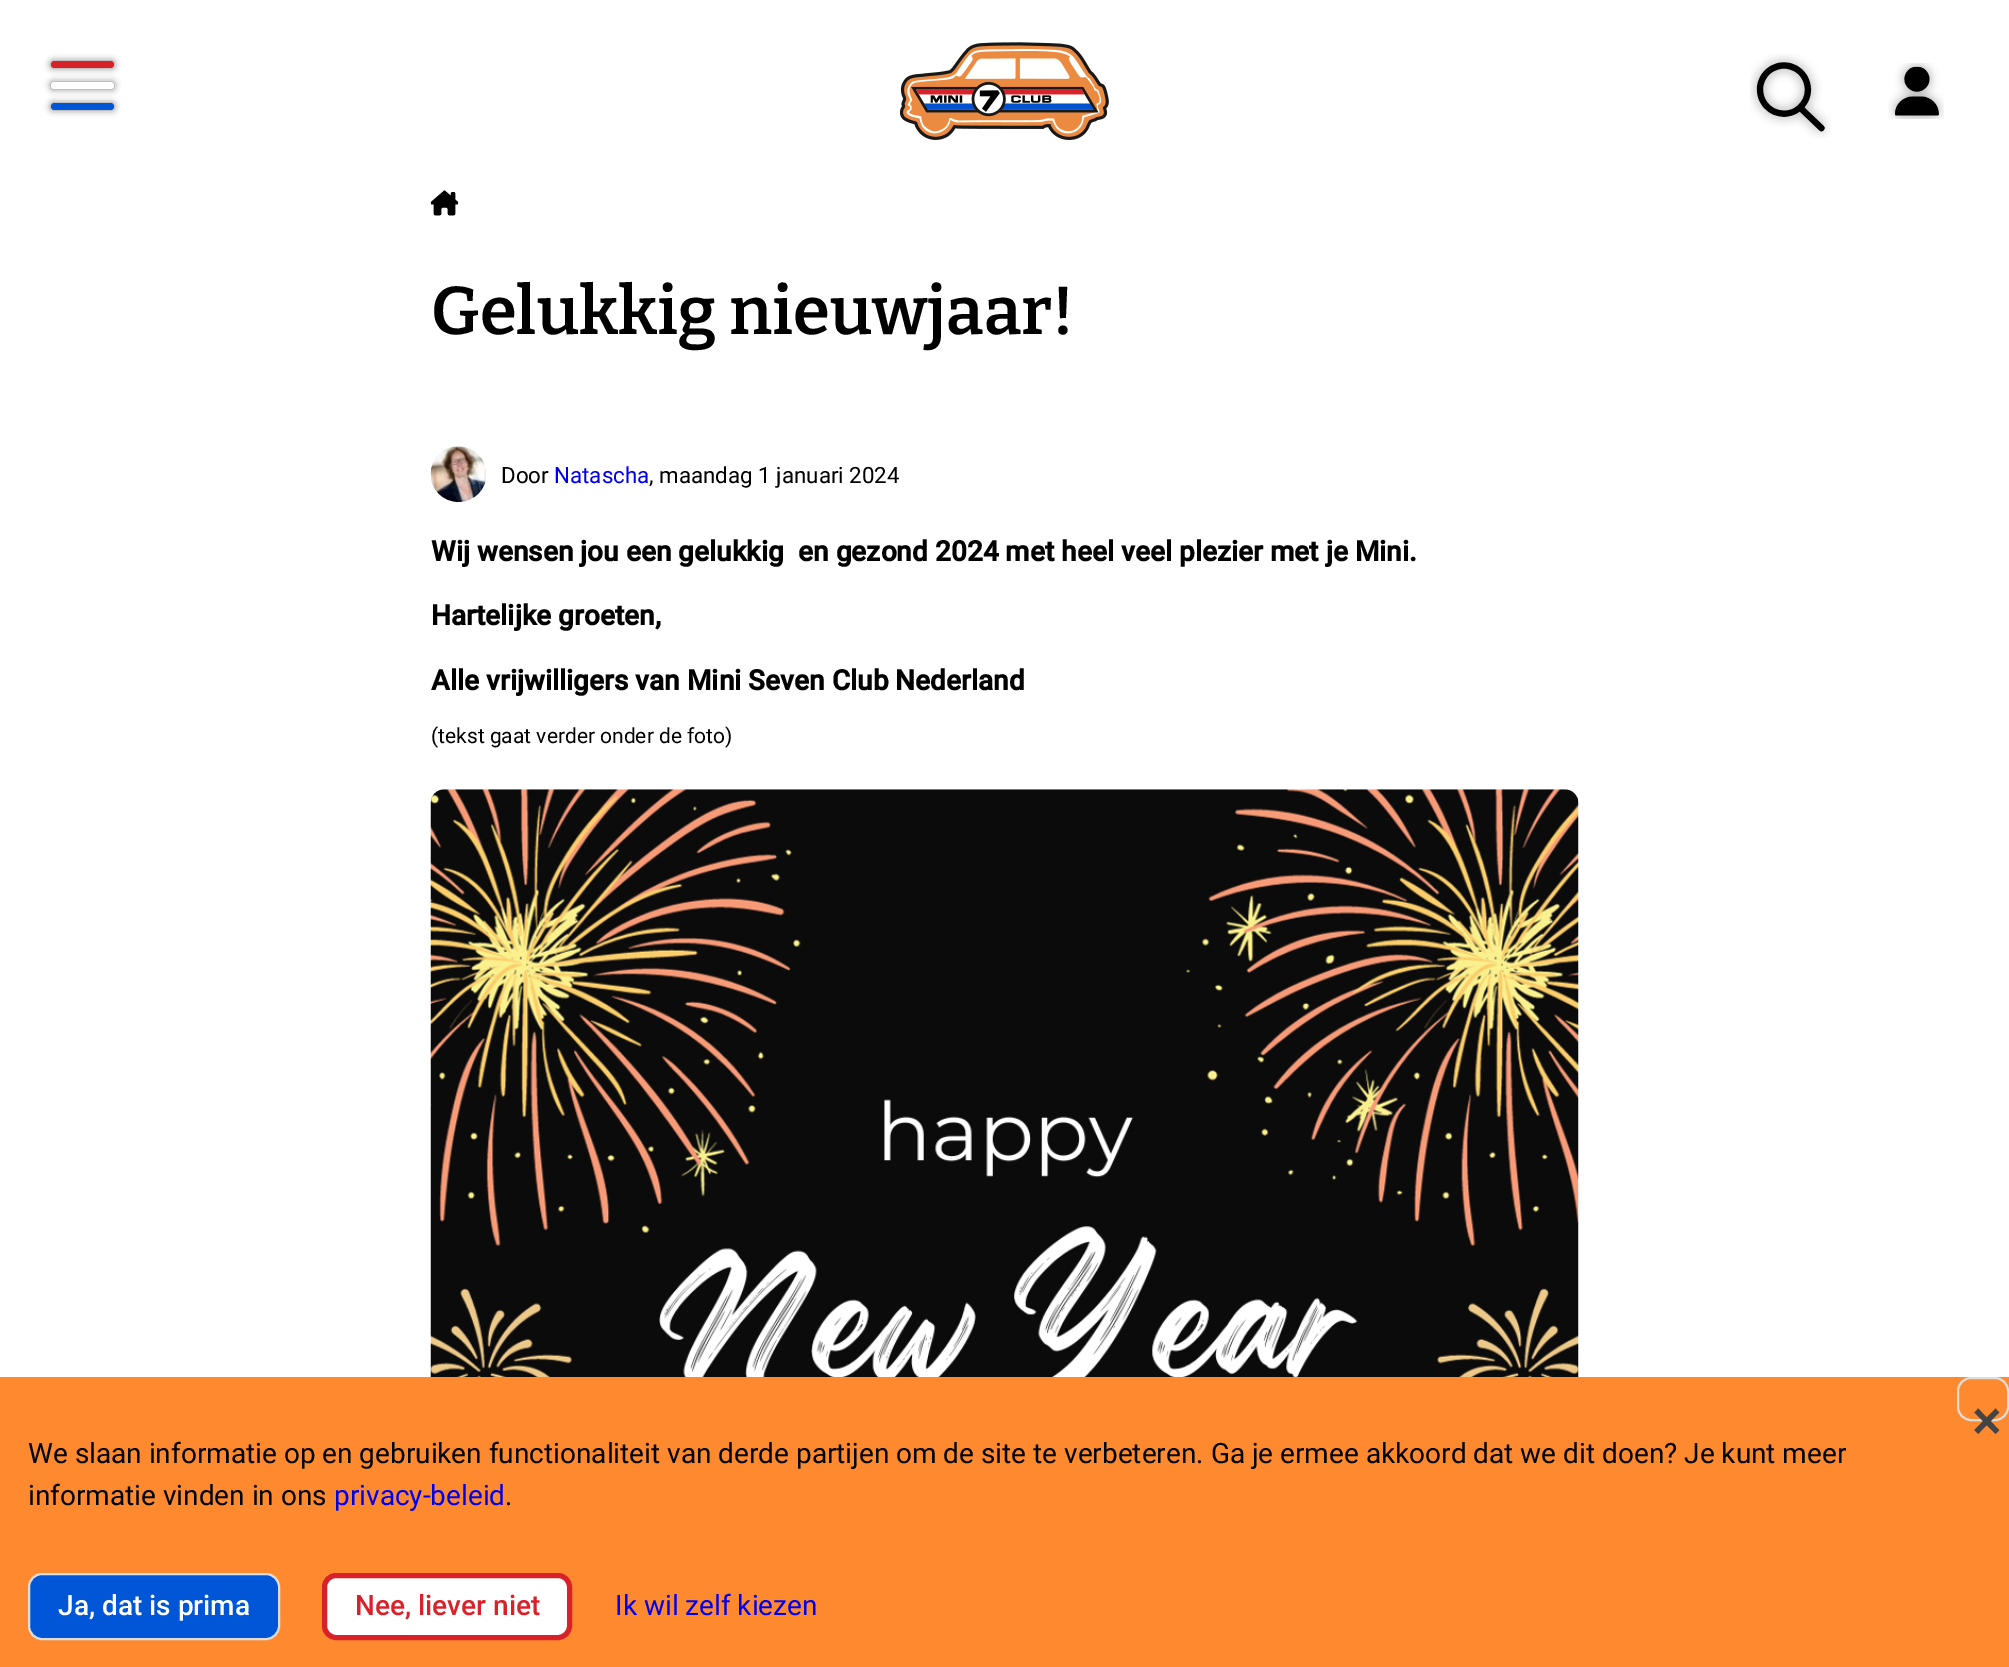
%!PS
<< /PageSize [2009 1667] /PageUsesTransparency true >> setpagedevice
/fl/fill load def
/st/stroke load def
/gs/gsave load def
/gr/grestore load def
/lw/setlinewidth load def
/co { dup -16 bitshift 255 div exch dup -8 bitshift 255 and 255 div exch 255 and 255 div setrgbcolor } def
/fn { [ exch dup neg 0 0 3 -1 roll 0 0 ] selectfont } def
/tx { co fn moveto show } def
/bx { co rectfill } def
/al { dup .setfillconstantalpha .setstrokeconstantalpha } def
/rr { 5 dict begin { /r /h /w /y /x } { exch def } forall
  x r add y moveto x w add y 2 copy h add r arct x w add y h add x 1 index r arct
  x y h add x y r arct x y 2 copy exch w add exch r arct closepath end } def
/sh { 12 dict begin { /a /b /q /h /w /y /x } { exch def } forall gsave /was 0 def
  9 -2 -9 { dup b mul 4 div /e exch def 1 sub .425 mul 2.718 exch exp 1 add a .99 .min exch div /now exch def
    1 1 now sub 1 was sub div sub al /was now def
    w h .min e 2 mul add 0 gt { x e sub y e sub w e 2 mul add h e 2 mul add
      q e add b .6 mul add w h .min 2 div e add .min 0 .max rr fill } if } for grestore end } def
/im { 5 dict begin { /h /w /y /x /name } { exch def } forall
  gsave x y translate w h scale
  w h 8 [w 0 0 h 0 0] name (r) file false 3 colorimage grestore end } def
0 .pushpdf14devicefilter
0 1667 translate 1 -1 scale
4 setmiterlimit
0 0 2009 1667 16#FFFFFF bx
16#000000 co
51 82 63 7 3.5 3.5 .5 sh
16#FFFFFF co
51 82 63 7 3.5 rr fl
16#000000 co
51 61 63 7 3.5 3.5 .5 sh
16#D8222A co
51 61 63 7 3.5 rr fl
16#000000 co
51 103 63 7 3.5 3.5 .5 sh
16#0056D7 co
51 103 63 7 3.5 rr fl
(media/1.raw) 900 42 209 98 im
(media/2.raw) 1750 54 81 84 im
(media/3.raw) 1888 63 56 56 im
(media/4.raw) 430 190 29 26 im
(media/5.raw) 430 446 56 56 im
(media/6.raw) 430 789 1149 588 im
0 1377 2009 290 16#FF892E bx
16#DDDDDD co
2 lw
1958 1378 50 42 13 rr st
16#0056D7 co
29 1574 250 65 13 rr gs fl gr
16#DDDDDD co
st
16#FFFFFF co
324.5 1575.5 245 62 11.5 rr gs fl gr
16#D8222A co
5 lw
st
(Gelukkig nieuwjaar!) 431 334 /Bitter-Thin 67.25 16#000000 tx
(Door) 501 483 /Roboto-Regular 22.4 16#000000 tx
(Natascha) 554 483 /Roboto-Regular 22.4 16#0000EE tx
(, maandag 1 januari 2024) 649 483 /Roboto-Regular 22.4 16#000000 tx
(Wij wensen jou een gelukkig) 431 561 /Roboto-Bold 28 16#000000 tx
(en gezond 2024 met heel veel plezier met je Mini.) 798 561 /Roboto-Bold 28 16#000000 tx
(Hartelijke groeten,) 431 625 /Roboto-Bold 28 16#000000 tx
(Alle vrijwilligers van Mini Seven Club Nederland) 431 690 /Roboto-Bold 28 16#000000 tx
(\(tekst gaat verder onder de foto\)) 431 743 /Roboto-Regular 21 16#000000 tx
(×) 1972 1440 /Roboto-Medium 56 16#444444 tx
(We slaan informatie op en gebruiken functionaliteit van derde partijen om de site te verbeteren. Ga je ermee akkoord dat we dit doen? Je kunt meer) 28 1463 /Roboto-Regular 28 16#000000 tx
(informatie vinden in ons) 28 1505 /Roboto-Regular 28 16#000000 tx
(privacy-beleid) 334 1505 /Roboto-Regular 28 16#0000EE tx
(.) 505 1505 /Roboto-Regular 28 16#000000 tx
(Ja, dat is prima) 58 1615 /Roboto-Medium 28 16#FFFFFF tx
(Nee, liever niet) 355 1615 /Roboto-Medium 28 16#D8222A tx
(Ik wil zelf kiezen) 615 1615 /Roboto-Regular 28 16#0000EE tx
.poppdf14devicefilter showpage
